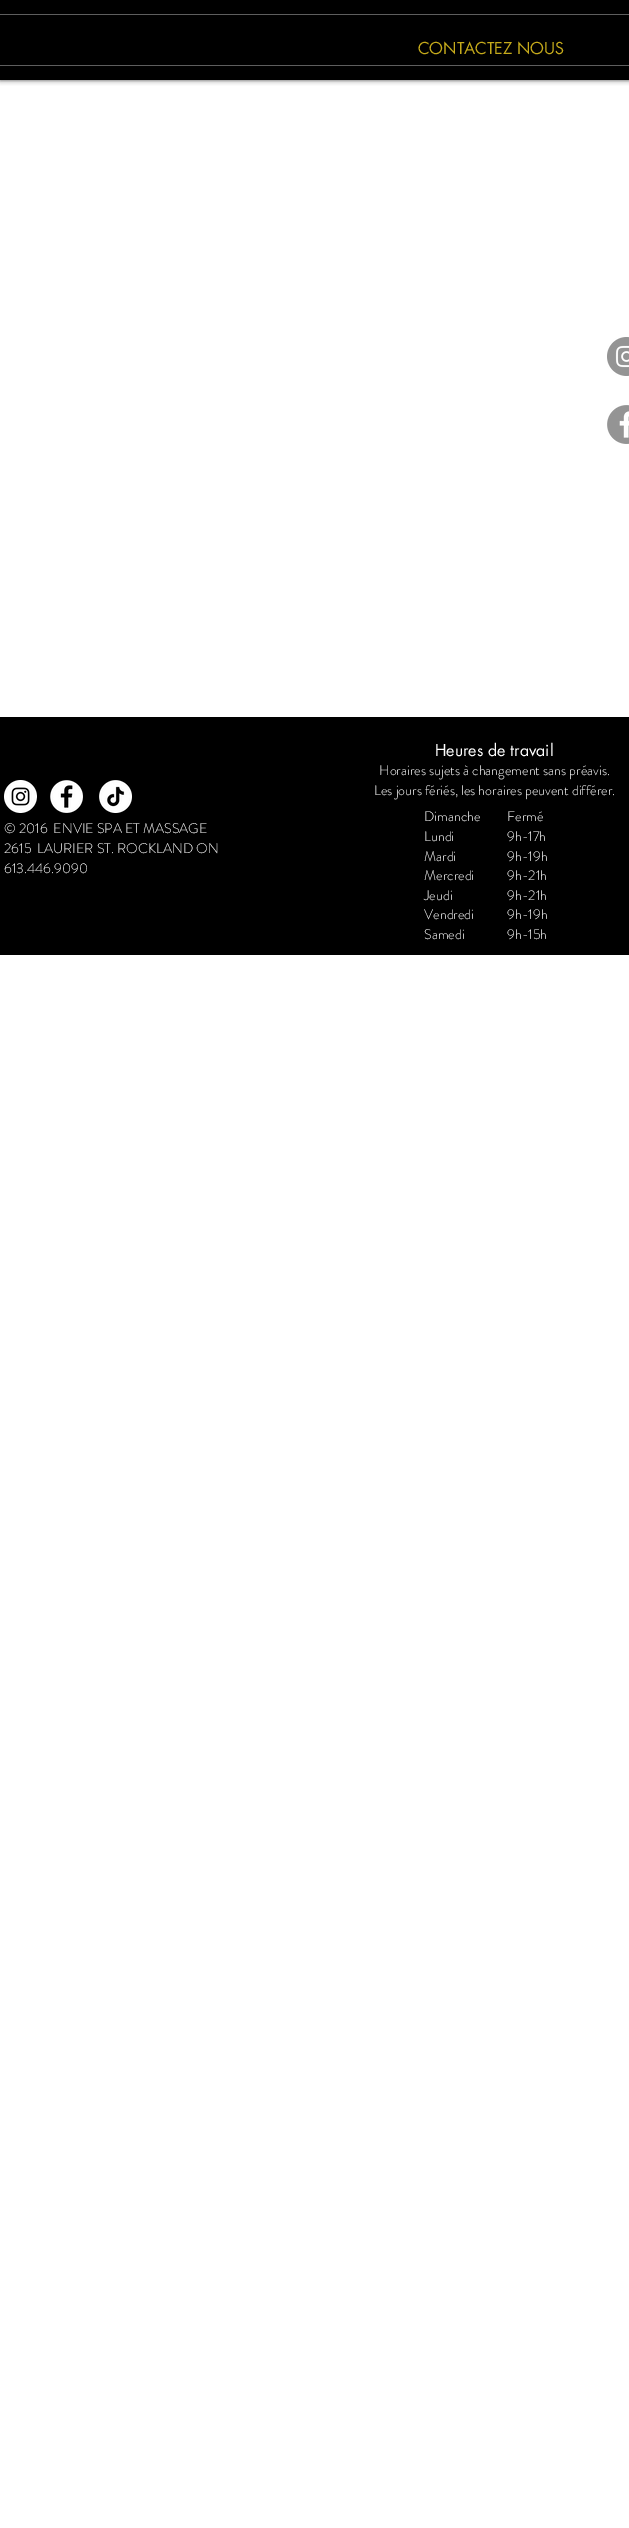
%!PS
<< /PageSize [629 2528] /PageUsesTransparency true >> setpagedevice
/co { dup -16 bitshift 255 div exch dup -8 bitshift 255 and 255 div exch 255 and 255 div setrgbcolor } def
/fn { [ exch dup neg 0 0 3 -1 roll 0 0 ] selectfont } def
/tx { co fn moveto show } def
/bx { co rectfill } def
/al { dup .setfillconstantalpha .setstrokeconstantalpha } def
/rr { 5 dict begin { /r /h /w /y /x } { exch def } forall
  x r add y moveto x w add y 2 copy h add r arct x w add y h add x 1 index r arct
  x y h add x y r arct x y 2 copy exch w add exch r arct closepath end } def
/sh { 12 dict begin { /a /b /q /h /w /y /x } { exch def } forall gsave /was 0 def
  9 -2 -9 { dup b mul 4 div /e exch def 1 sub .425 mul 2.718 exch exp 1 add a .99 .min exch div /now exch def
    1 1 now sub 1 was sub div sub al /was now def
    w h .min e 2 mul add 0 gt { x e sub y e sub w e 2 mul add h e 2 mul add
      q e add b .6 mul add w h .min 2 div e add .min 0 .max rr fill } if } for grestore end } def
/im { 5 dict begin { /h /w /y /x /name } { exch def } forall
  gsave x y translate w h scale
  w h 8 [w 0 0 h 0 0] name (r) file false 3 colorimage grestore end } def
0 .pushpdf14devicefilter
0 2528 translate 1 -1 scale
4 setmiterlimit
0 0 629 2528 16#FFFFFF bx
16#000000 co
0 0 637 80 0 2.5 .7 sh
0 0 629 80 16#000000 bx
0 14 629 1 16#5E5E5E bx
0 65 629 1 16#5E5E5E bx
(media/1.raw) 607 337 22 39 im
(media/2.raw) 607 405 22 39 im
0 717 629 238 16#000000 bx
(media/3.raw) 4 780 33 33 im
(media/4.raw) 50 780 33 33 im
(media/5.raw) 99 780 33 33 im
(CONTACTEZ NOUS) 418 54 /futura-Regular 16 16#C5AA1B tx
(Heures de travail) 435 756 /futura-Regular 16 16#FFFFFF tx
(Horaires sujets à changement sans préavis.) 379 775 /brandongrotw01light-Light 14 16#FFFFFF tx
(Les jours fériés, les horaires peuvent différer.) 374 795 /brandongrotw01light-Light 14 16#FFFFFF tx
(© 2016  ENVIE SPA ET MASSAGE) 4 833 /brandongrotw01light-Light 14 16#FFFFFF tx
(2615  LAURIER ST. ROCKLAND ON) 4 853 /brandongrotw01light-Light 14 16#FFFFFF tx
(613.446.9090) 4 873 /brandongrotw01light-Light 14 16#FFFFFF tx
(Dimanche) 424 821 /brandongrotw01light-Light 14 16#FFFFFF tx
(Lundi) 424 841 /brandongrotw01light-Light 14 16#FFFFFF tx
(Mardi) 424 861 /brandongrotw01light-Light 14 16#FFFFFF tx
(Mercredi) 424 880 /brandongrotw01light-Light 14 16#FFFFFF tx
(Jeudi) 424 900 /brandongrotw01light-Light 14 16#FFFFFF tx
(Vendredi) 424 919 /brandongrotw01light-Light 14 16#FFFFFF tx
(Samedi) 424 939 /brandongrotw01light-Light 14 16#FFFFFF tx
(Fermé) 507 821 /brandongrotw01light-Light 14 16#FFFFFF tx
(9h-17h) 507 841 /brandongrotw01light-Light 14 16#FFFFFF tx
(9h-19h) 507 861 /brandongrotw01light-Light 14 16#FFFFFF tx
(9h-21h) 507 880 /brandongrotw01light-Light 14 16#FFFFFF tx
(9h-21h) 507 900 /brandongrotw01light-Light 14 16#FFFFFF tx
(9h-19h) 507 919 /brandongrotw01light-Light 14 16#FFFFFF tx
(9h-15h) 507 939 /brandongrotw01light-Light 14 16#FFFFFF tx
.poppdf14devicefilter showpage
